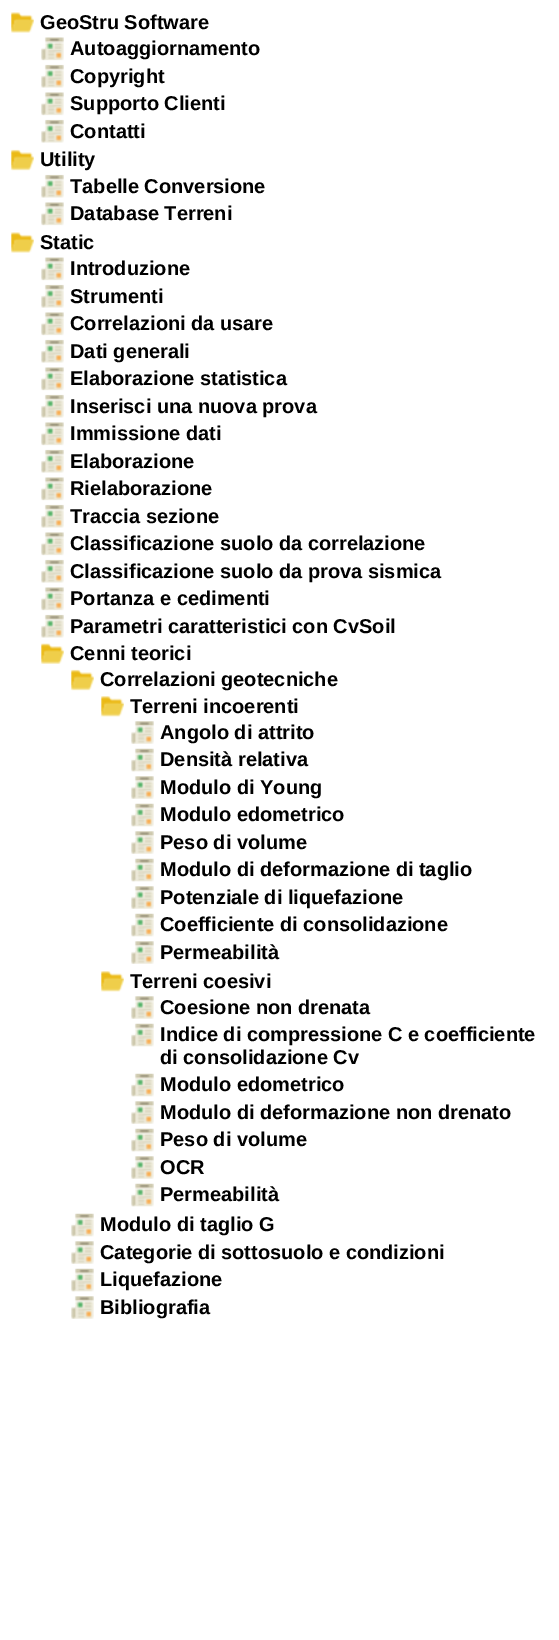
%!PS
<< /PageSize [559 1640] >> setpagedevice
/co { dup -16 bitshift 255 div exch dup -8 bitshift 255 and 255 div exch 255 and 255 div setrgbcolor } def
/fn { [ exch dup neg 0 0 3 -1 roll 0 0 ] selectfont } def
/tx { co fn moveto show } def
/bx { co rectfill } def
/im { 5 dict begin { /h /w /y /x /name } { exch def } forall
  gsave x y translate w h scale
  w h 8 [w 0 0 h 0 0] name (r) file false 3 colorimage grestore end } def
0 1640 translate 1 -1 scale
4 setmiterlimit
0 0 559 1640 16#FFFFFF bx
(media/1.raw) 11 12 23 21 im
(media/2.raw) 41 37 23 24 im
(media/3.raw) 41 64 23 24 im
(media/2.raw) 41 92 23 24 im
(media/3.raw) 41 119 23 24 im
(media/4.raw) 11 149 23 22 im
(media/3.raw) 41 174 23 24 im
(media/2.raw) 41 202 23 24 im
(media/1.raw) 11 232 23 21 im
(media/5.raw) 41 257 23 24 im
(media/6.raw) 41 284 23 24 im
(media/2.raw) 41 312 23 24 im
(media/3.raw) 41 339 23 24 im
(media/2.raw) 41 367 23 24 im
(media/3.raw) 41 394 23 24 im
(media/2.raw) 41 422 23 24 im
(media/3.raw) 41 449 23 24 im
(media/2.raw) 41 477 23 24 im
(media/3.raw) 41 504 23 24 im
(media/2.raw) 41 532 23 24 im
(media/3.raw) 41 559 23 24 im
(media/7.raw) 41 587 23 24 im
(media/3.raw) 41 614 23 24 im
(media/8.raw) 41 643 23 21 im
(media/4.raw) 71 669 23 22 im
(media/9.raw) 101 696 23 21 im
(media/10.raw) 131 721 23 23 im
(media/11.raw) 131 748 23 24 im
(media/12.raw) 131 776 23 23 im
(media/11.raw) 131 803 23 24 im
(media/10.raw) 131 831 23 23 im
(media/11.raw) 131 858 23 24 im
(media/10.raw) 131 886 23 23 im
(media/11.raw) 131 913 23 24 im
(media/10.raw) 131 941 23 23 im
(media/9.raw) 101 971 23 21 im
(media/10.raw) 131 996 23 23 im
(media/13.raw) 131 1023 23 24 im
(media/11.raw) 131 1073 23 24 im
(media/10.raw) 131 1101 23 23 im
(media/11.raw) 131 1128 23 24 im
(media/14.raw) 131 1156 23 23 im
(media/11.raw) 131 1183 23 24 im
(media/11.raw) 71 1213 23 24 im
(media/10.raw) 71 1241 23 23 im
(media/11.raw) 71 1268 23 24 im
(media/10.raw) 71 1296 23 23 im
(GeoStru Software) 40 29 /LiberationSans-Bold 20 16#000000 tx
(Autoaggiornamento) 70 55 /LiberationSans-Bold 20 16#000000 tx
(Copyright) 70 83 /LiberationSans-Bold 20 16#000000 tx
(Supporto Clienti) 70 110 /LiberationSans-Bold 20 16#000000 tx
(Contatti) 70 138 /LiberationSans-Bold 20 16#000000 tx
(Utility) 40 166 /LiberationSans-Bold 20 16#000000 tx
(Tabelle Conversione) 70 193 /LiberationSans-Bold 20 16#000000 tx
(Database Terreni) 70 220 /LiberationSans-Bold 20 16#000000 tx
(Static) 40 249 /LiberationSans-Bold 20 16#000000 tx
(Introduzione) 70 275 /LiberationSans-Bold 20 16#000000 tx
(Strumenti) 70 303 /LiberationSans-Bold 20 16#000000 tx
(Correlazioni da usare) 70 330 /LiberationSans-Bold 20 16#000000 tx
(Dati generali) 70 358 /LiberationSans-Bold 20 16#000000 tx
(Elaborazione statistica) 70 385 /LiberationSans-Bold 20 16#000000 tx
(Inserisci una nuova prova) 70 413 /LiberationSans-Bold 20 16#000000 tx
(Immissione dati) 70 440 /LiberationSans-Bold 20 16#000000 tx
(Elaborazione) 70 468 /LiberationSans-Bold 20 16#000000 tx
(Rielaborazione) 70 495 /LiberationSans-Bold 20 16#000000 tx
(Traccia sezione) 70 523 /LiberationSans-Bold 20 16#000000 tx
(Classificazione suolo da correlazione) 70 550 /LiberationSans-Bold 20 16#000000 tx
(Classificazione suolo da prova sismica) 70 578 /LiberationSans-Bold 20 16#000000 tx
(Portanza e cedimenti) 70 605 /LiberationSans-Bold 20 16#000000 tx
(Parametri caratteristici con CvSoil) 70 633 /LiberationSans-Bold 20 16#000000 tx
(Cenni teorici) 70 660 /LiberationSans-Bold 20 16#000000 tx
(Correlazioni geotecniche) 100 686 /LiberationSans-Bold 20 16#000000 tx
(Terreni incoerenti) 130 713 /LiberationSans-Bold 20 16#000000 tx
(Angolo di attrito) 160 739 /LiberationSans-Bold 20 16#000000 tx
(Densità relativa) 160 766 /LiberationSans-Bold 20 16#000000 tx
(Modulo di Young) 160 794 /LiberationSans-Bold 20 16#000000 tx
(Modulo edometrico) 160 821 /LiberationSans-Bold 20 16#000000 tx
(Peso di volume) 160 849 /LiberationSans-Bold 20 16#000000 tx
(Modulo di deformazione di taglio) 160 876 /LiberationSans-Bold 20 16#000000 tx
(Potenziale di liquefazione) 160 904 /LiberationSans-Bold 20 16#000000 tx
(Coefficiente di consolidazione) 160 931 /LiberationSans-Bold 20 16#000000 tx
(Permeabilità) 160 959 /LiberationSans-Bold 20 16#000000 tx
(Terreni coesivi) 130 988 /LiberationSans-Bold 20 16#000000 tx
(Coesione non drenata) 160 1014 /LiberationSans-Bold 20 16#000000 tx
(Indice di compressione C e coefficiente) 160 1041 /LiberationSans-Bold 20 16#000000 tx
(di consolidazione Cv) 160 1064 /LiberationSans-Bold 20 16#000000 tx
(Modulo edometrico) 160 1091 /LiberationSans-Bold 20 16#000000 tx
(Modulo di deformazione non drenato) 160 1119 /LiberationSans-Bold 20 16#000000 tx
(Peso di volume) 160 1146 /LiberationSans-Bold 20 16#000000 tx
(OCR) 160 1174 /LiberationSans-Bold 20 16#000000 tx
(Permeabilità) 160 1201 /LiberationSans-Bold 20 16#000000 tx
(Modulo di taglio G) 100 1231 /LiberationSans-Bold 20 16#000000 tx
(Categorie di sottosuolo e condizioni) 100 1259 /LiberationSans-Bold 20 16#000000 tx
(Liquefazione) 100 1286 /LiberationSans-Bold 20 16#000000 tx
(Bibliografia) 100 1314 /LiberationSans-Bold 20 16#000000 tx
showpage
